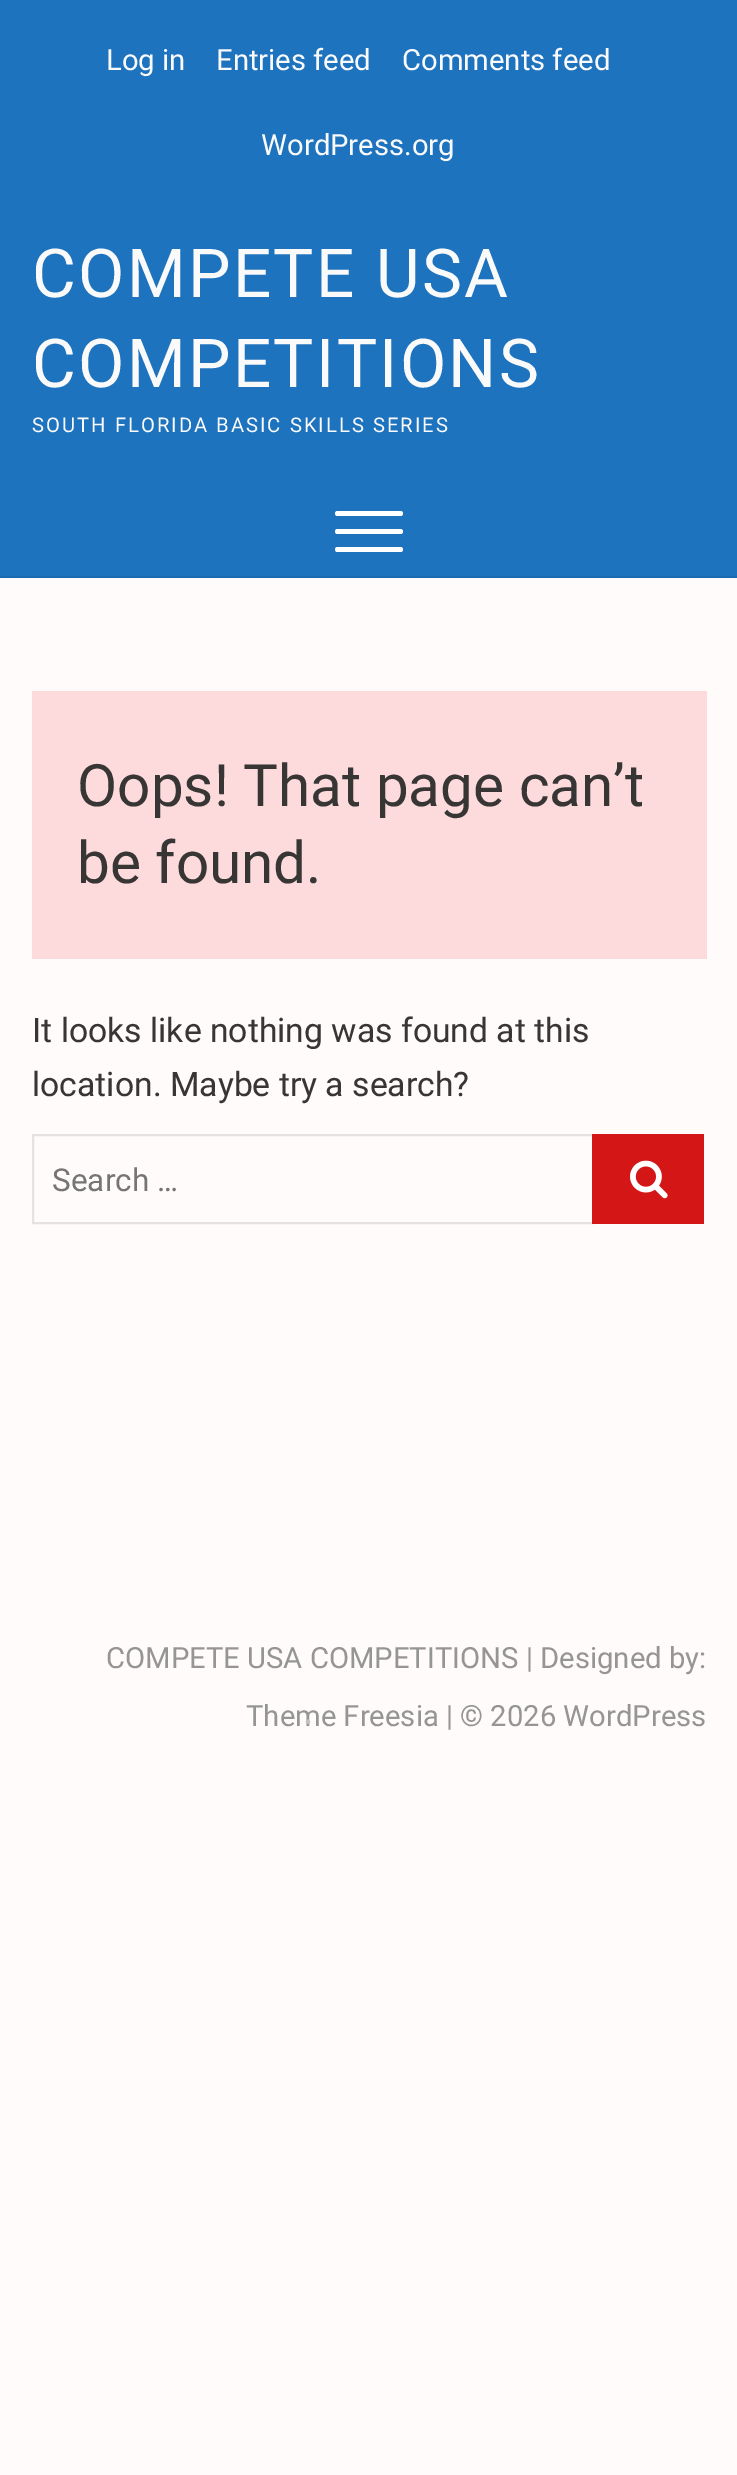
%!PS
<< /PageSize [737 2475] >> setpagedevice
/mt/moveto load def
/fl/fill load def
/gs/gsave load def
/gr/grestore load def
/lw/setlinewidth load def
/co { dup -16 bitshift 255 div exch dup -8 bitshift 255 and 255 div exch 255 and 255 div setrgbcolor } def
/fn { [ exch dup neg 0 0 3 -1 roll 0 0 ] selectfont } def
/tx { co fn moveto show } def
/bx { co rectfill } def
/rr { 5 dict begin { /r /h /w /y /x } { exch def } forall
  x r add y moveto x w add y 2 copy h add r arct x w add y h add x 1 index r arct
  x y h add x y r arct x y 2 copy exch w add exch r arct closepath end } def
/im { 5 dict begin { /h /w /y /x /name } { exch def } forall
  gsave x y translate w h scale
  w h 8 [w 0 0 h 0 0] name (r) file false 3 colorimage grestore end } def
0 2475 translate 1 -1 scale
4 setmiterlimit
0 0 737 2475 16#FFFBFB bx
0 0 737 576 16#1E73BE bx
16#FFFFFF co
335 529 68 5 2.5 rr fl
335 511 68 5 2.5 rr fl
335 547 68 5 2.5 rr fl
0 576 737 2 16#1C6AAF bx
32 691 675 268 16#FDDBDD bx
16#E6E2E2 co
2 lw
33 1135 560 88 rectstroke
592 1134 112 90 16#D41616 bx
(media/1.raw) 630 1160 38 39 im
(Log in) 106 70 /Roboto-Regular 29.25 16#FAFAFA tx
(Entries feed) 216 70 /Roboto-Regular 29.25 16#FAFAFA tx
(Comments feed) 402 70 /Roboto-Regular 29.25 16#FAFAFA tx
(WordPress.org) 261 155 /Roboto-Regular 29.25 16#FAFAFA tx
/Roboto-Regular 67.5 fn
32 297 mt 2.25 0 (COMPETE USA) ashow
32 387 mt 2.25 0 (COMPETITIONS) ashow
/Roboto-Regular 20.25 fn
32 432 mt 2 0 (SOUTH FLORIDA BASIC SKILLS SERIES) ashow
(Oops! That page can’t) 77 806 /Roboto-Regular 58.5 16#383634 tx
(be found.) 77 883 /Roboto-Regular 58.5 16#383634 tx
(It looks like nothing was found at this) 32 1042 /Roboto-Regular 33.75 16#383634 tx
(location. Maybe try a search?) 32 1096 /Roboto-Regular 33.75 16#383634 tx
(Search …) 52 1191 /Roboto-Regular 31.5 16#757575 tx
(COMPETE USA COMPETITIONS | Designed by:) 106 1668 /Roboto-Regular 29.25 16#969595 tx
(Theme Freesia | © 2026 WordPress) 246 1726 /Roboto-Regular 29.25 16#969595 tx
/Roboto-Regular 40 fn
16#C2C0C0 co
gs 304 1718 translate 62 rotate 0 0 mt (.) show gr
showpage
